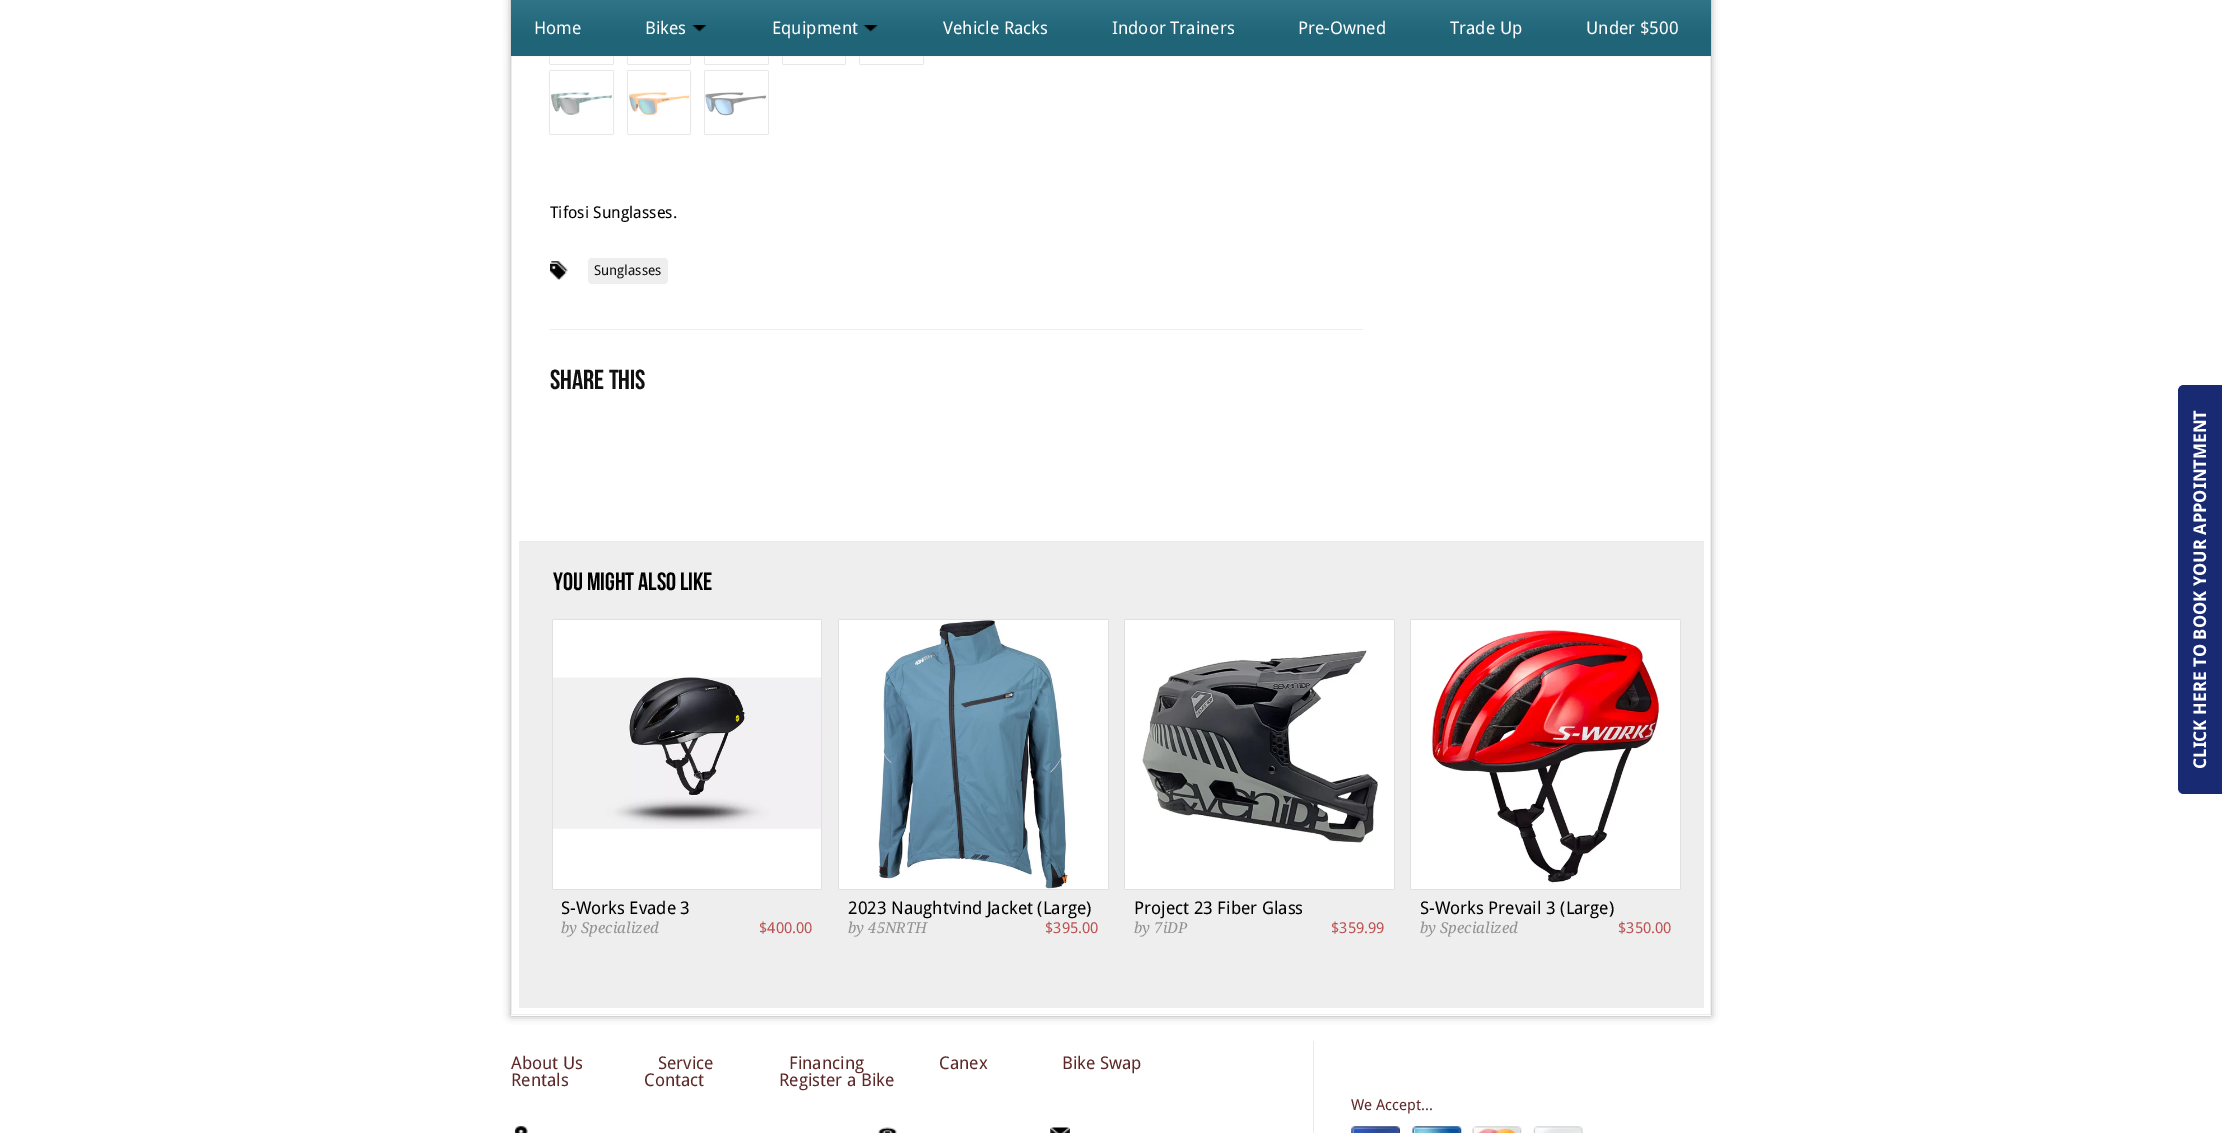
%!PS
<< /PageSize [2222 1133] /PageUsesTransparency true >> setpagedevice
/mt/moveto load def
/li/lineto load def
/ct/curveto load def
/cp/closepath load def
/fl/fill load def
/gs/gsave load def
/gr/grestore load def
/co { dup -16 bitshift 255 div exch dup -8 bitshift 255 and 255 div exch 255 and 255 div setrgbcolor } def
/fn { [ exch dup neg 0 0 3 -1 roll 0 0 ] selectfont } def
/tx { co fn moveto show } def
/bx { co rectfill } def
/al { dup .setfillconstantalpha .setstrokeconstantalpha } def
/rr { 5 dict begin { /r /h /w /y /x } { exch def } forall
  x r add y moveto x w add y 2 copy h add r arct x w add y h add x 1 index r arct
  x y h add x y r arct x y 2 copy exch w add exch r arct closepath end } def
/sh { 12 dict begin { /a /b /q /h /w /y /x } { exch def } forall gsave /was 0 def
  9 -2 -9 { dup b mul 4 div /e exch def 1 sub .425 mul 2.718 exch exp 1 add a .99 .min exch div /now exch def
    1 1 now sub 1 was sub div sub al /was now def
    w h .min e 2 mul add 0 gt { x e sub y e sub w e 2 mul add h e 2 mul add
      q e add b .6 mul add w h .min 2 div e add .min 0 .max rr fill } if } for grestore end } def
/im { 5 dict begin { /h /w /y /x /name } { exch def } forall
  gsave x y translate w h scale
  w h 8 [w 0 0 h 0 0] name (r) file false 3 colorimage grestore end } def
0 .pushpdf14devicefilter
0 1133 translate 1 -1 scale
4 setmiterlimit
0 0 2222 1133 16#FFFFFF bx
16#A6A6A6 co
511 -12 1200 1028 0 4 1 sh
511 56 1200 960 16#FFFFFF bx
16#AAAAAA co
550 1 63 63 0 .5 1 sh
628 1 62 63 0 .5 1 sh
705 1 63 63 0 .5 1 sh
783 1 62 63 0 .5 1 sh
860 1 63 63 0 .5 1 sh
511 0 1200 56 16#237288 bx
1710 56 1 959 16#EEEEEE bx
511 1014 1200 1 16#EEEEEE bx
511 56 1 959 16#EEEEEE bx
550 56 63 8 16#FFFFFF bx
628 56 62 8 16#FFFFFF bx
705 56 63 8 16#FFFFFF bx
783 56 62 8 16#FFFFFF bx
860 56 63 8 16#FFFFFF bx
(media/1.raw) 511 0 1200 57 im
(media/2.raw) 692 25 15 7 im
(media/3.raw) 863 25 15 7 im
16#AAAAAA co
550 71 63 63 0 .5 1 sh
550 71 63 63 16#FFFFFF bx
(media/4.raw) 550 92 62 23 im
16#AAAAAA co
628 71 62 63 0 .5 1 sh
628 71 62 63 16#FFFFFF bx
(media/5.raw) 628 92 62 24 im
16#AAAAAA co
705 71 63 63 0 .5 1 sh
705 71 63 63 16#FFFFFF bx
(media/6.raw) 705 92 62 24 im
(media/7.raw) 550 261 18 19 im
16#EEEEEE co
588 258 80 26 4 rr fl
550 329 813 1 16#EEEEEE bx
519 542 1185 466 16#EEEEEE bx
519 541 1185 1 16#EAEAEA bx
16#BBBBBB co
553 620 268 269 0 .5 1 sh
553 620 268 269 16#FFFFFF bx
(media/8.raw) 553 677 268 152 im
16#BBBBBB co
839 620 269 269 0 .5 1 sh
839 620 269 269 16#FFFFFF bx
(media/9.raw) 878 620 190 269 im
16#BBBBBB co
1125 620 269 269 0 .5 1 sh
1125 620 269 269 16#FFFFFF bx
(media/10.raw) 1142 650 236 193 im
16#BBBBBB co
1411 620 269 269 0 .5 1 sh
1411 620 269 269 16#FFFFFF bx
(media/11.raw) 1431 629 230 255 im
16#172A72 co
2178 788 mt 2178 391 li 2178 388 2180 385 2184 385 ct 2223 385 li 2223 794 li 2184 794 li 2180 794 2178 791 2178 788 ct cp fl
(media/12.raw) 514 1126 14 7 im
(media/13.raw) 878 1127 19 6 im
(media/14.raw) 1050 1127 20 6 im
1313 1041 1 92 16#EAEAEA bx
(media/15.raw) 1351 1126 49 7 im
(media/16.raw) 1412 1126 50 7 im
(media/17.raw) 1472 1126 50 7 im
(media/18.raw) 1533 1126 50 7 im
(Home) 534 34 /DroidSans-Regular 17.5 16#FFFFFF tx
(Bikes) 645 34 /DroidSans-Regular 17.5 16#FFFFFF tx
(Equipment) 772 34 /DroidSans-Regular 17.5 16#FFFFFF tx
(Vehicle Racks) 943 34 /DroidSans-Regular 17.5 16#FFFFFF tx
(Indoor Trainers) 1112 34 /DroidSans-Regular 17.5 16#FFFFFF tx
(Pre-Owned) 1298 34 /DroidSans-Regular 17.5 16#FFFFFF tx
(Trade Up) 1450 34 /DroidSans-Regular 17.5 16#FFFFFF tx
(Under $500) 1586 34 /DroidSans-Regular 17.5 16#FFFFFF tx
(Tifosi Sunglasses.) 550 218 /DroidSans-Regular 16.25 16#000000 tx
(Sunglasses) 594 275 /DroidSans-Regular 13.75 16#111111 tx
(Share This) 550 389 /BebasNeue-Regular 27.5 16#111111 tx
(You Might Also Like) 553 590 /BebasNeue-Regular 25 16#000000 tx
(S-Works Evade 3) 561 914 /DroidSans-Regular 17.5 16#000000 tx
(by Specialized) 561 933 /DroidSerif-Italic 15 16#919191 tx
($400.00) 759 933 /DroidSans-Regular 15 16#BB5151 tx
(2023 Naughtvind Jacket \(Large\)) 848 914 /DroidSans-Regular 17.5 16#000000 tx
(by 45NRTH) 848 933 /DroidSerif-Italic 15 16#919191 tx
($395.00) 1045 933 /DroidSans-Regular 15 16#BB5151 tx
(Project 23 Fiber Glass) 1134 914 /DroidSans-Regular 17.5 16#000000 tx
(by 7iDP) 1134 933 /DroidSerif-Italic 15 16#919191 tx
($359.99) 1331 933 /DroidSans-Regular 15 16#BB5151 tx
(S-Works Prevail 3 \(Large\)) 1420 914 /DroidSans-Regular 17.5 16#000000 tx
(by Specialized) 1420 933 /DroidSerif-Italic 15 16#919191 tx
($350.00) 1618 933 /DroidSans-Regular 15 16#BB5151 tx
/DroidSans-Bold 17.5 fn
16#FFFFFF co
gs 2206 769 translate -90 rotate 0 0 mt (CLICK HERE TO BOOK YOUR APPOINTMENT) show gr
(About Us) 511 1069 /DroidSans-Regular 17.5 16#5E2828 tx
(Service) 658 1069 /DroidSans-Regular 17.5 16#5E2828 tx
(Financing) 789 1069 /DroidSans-Regular 17.5 16#5E2828 tx
(Canex) 939 1069 /DroidSans-Regular 17.5 16#5E2828 tx
(Bike Swap) 1062 1069 /DroidSans-Regular 17.5 16#5E2828 tx
(Rentals) 511 1086 /DroidSans-Regular 17.5 16#5E2828 tx
(Contact) 644 1086 /DroidSans-Regular 17.5 16#5E2828 tx
(Register a Bike) 779 1086 /DroidSans-Regular 17.5 16#5E2828 tx
(We Accept...) 1351 1110 /DroidSans-Regular 15 16#5E2828 tx
.poppdf14devicefilter showpage
